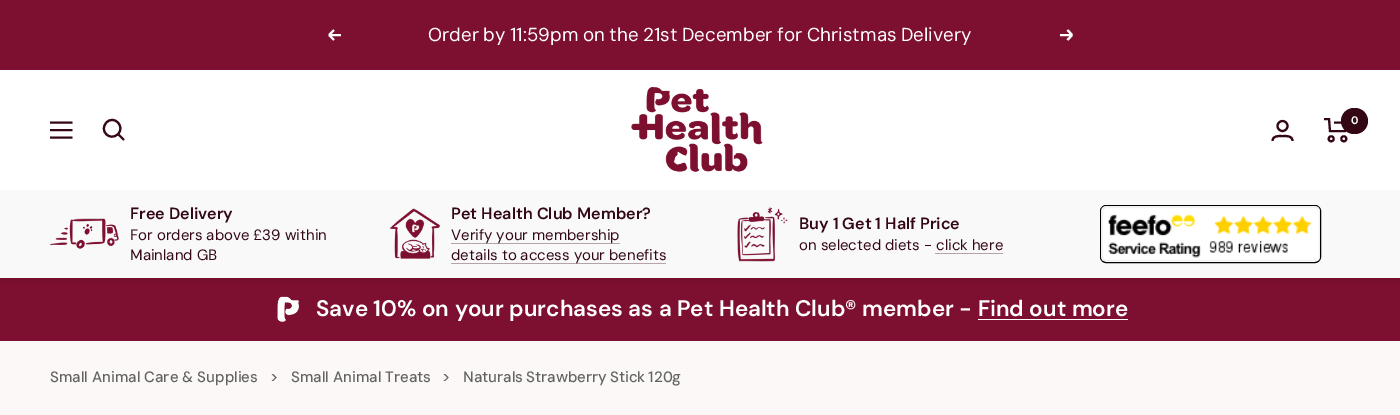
%!PS
<< /PageSize [1400 415] /PageUsesTransparency true >> setpagedevice
/mt/moveto load def
/li/lineto load def
/ct/curveto load def
/cp/closepath load def
/fl/fill load def
/st/stroke load def
/lw/setlinewidth load def
/co { dup -16 bitshift 255 div exch dup -8 bitshift 255 and 255 div exch 255 and 255 div setrgbcolor } def
/fn { [ exch dup neg 0 0 3 -1 roll 0 0 ] selectfont } def
/tx { co fn moveto show } def
/bx { co rectfill } def
/al { dup .setfillconstantalpha .setstrokeconstantalpha } def
/ci { newpath 0 360 arc closepath } def
/rr { 5 dict begin { /r /h /w /y /x } { exch def } forall
  x r add y moveto x w add y 2 copy h add r arct x w add y h add x 1 index r arct
  x y h add x y r arct x y 2 copy exch w add exch r arct closepath end } def
/sh { 12 dict begin { /a /b /q /h /w /y /x } { exch def } forall gsave /was 0 def
  9 -2 -9 { dup b mul 4 div /e exch def 1 sub .425 mul 2.718 exch exp 1 add a .99 .min exch div /now exch def
    1 1 now sub 1 was sub div sub al /was now def
    w h .min e 2 mul add 0 gt { x e sub y e sub w e 2 mul add h e 2 mul add
      q e add b .6 mul add w h .min 2 div e add .min 0 .max rr fill } if } for grestore end } def
/im { 5 dict begin { /h /w /y /x /name } { exch def } forall
  gsave x y translate w h scale
  w h 8 [w 0 0 h 0 0] name (r) file false 3 colorimage grestore end } def
0 .pushpdf14devicefilter
0 415 translate 1 -1 scale
4 setmiterlimit
0 0 1400 415 16#FBF8F7 bx
0 0 1400 70 16#7D0F30 bx
16#FFFFFF co
2.1 lw
341 35 mt 329 35 li 329 35 mt 334 40 li 329 35 mt 334 30 li st
1060 35 mt 1072 35 li 1072 35 mt 1067.5 40 li 1072 35 mt 1067.5 30 li st
0 278 1400 63 16#7D0F30 bx
16#000000 co
0 194 1400 87 0 4 .08 sh
0 70 1400 120 16#FFFFFF bx
16#330714 co
50 122.5 mt 72.5 122.5 li 50 137.5 mt 72.5 137.5 li cp 50 130 mt 72.5 130 li cp st
118 134 mt 125.5 126.5 114 114.5 106.5 122.5 ct 98.5 130.5 110 142 118 134 ct cp 118 134 mt 124 140 li st
(media/1.raw) 631 87 132 85 im
1282.5 126 5 ci st
1272.5 141 mt 1272.5 135.5 1278.5 136 1282.5 136 ct 1286.5 136 1292.5 135.5 1292.5 141 ct st
1324 119 mt 1329 119 li 1330 131 li 1345 131 li 1347.5 122.5 li 1334 122.5 li st
1331.2 138.8 2.5 ci st
1343.8 138.8 2.5 ci st
1341 108 27 26 13 rr fl
0 190 1400 88 16#F9F9F9 bx
(media/2.raw) 50 218 69 31 im
(media/3.raw) 390 208 50 51 im
451 243 169 1 16#B4A4A9 bx
451 263 215 1 16#B4A4A9 bx
(media/4.raw) 737 207 51 55 im
935 253 68 1 16#B4A4A9 bx
16#000000 co
1 lw
1100.5 205.5 220 57 5.5 rr st
(media/5.raw) 1101 206 219 55 im
(media/6.raw) 277 296 22 26 im
978 319 150 1 16#FFFFFF bx
/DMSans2-Regular 18.75 fn
428 41 mt -.5 0 32 (Order by 11:59pm on the 21st December for Christmas Delivery) widthshow
(0) 1351 124 /DMSans-Bold 11 16#FFFFFF tx
(Free Delivery) 130 219 /DMSans2-SemiBold 16.25 16#330714 tx
(For orders above £39 within) 130 240 /DMSans-Regular 15 16#330714 tx
(Mainland GB) 130 260 /DMSans-Regular 15 16#330714 tx
(Pet Health Club Member?) 451 219 /DMSans2-SemiBold 16.25 16#330714 tx
(Verify your membership) 451 240 /DMSans-Regular 15 16#330714 tx
(details to access your benefits) 451 260 /DMSans-Regular 15 16#330714 tx
(Buy 1 Get 1 Half Price) 799 229 /DMSans2-SemiBold 16.25 16#330714 tx
(on selected diets - click here) 799 250 /DMSans-Regular 15 16#330714 tx
(Save 10% on your purchases as a Pet Health Club® member - Find out more) 316 316 /DMSans-SemiBold 22.5 16#FFFFFF tx
(Small Animal Care & Supplies) 50 382 /DMSans-Medium 15 16#636363 tx
(>) 270 382 /DMSans-Medium 15 16#636363 tx
(Small Animal Treats) 291 382 /DMSans-Medium 15 16#636363 tx
(>) 442 382 /DMSans-Medium 15 16#636363 tx
463 382 mt -1 0 32 (Naturals Strawberry Stick 120g) widthshow
.poppdf14devicefilter showpage
